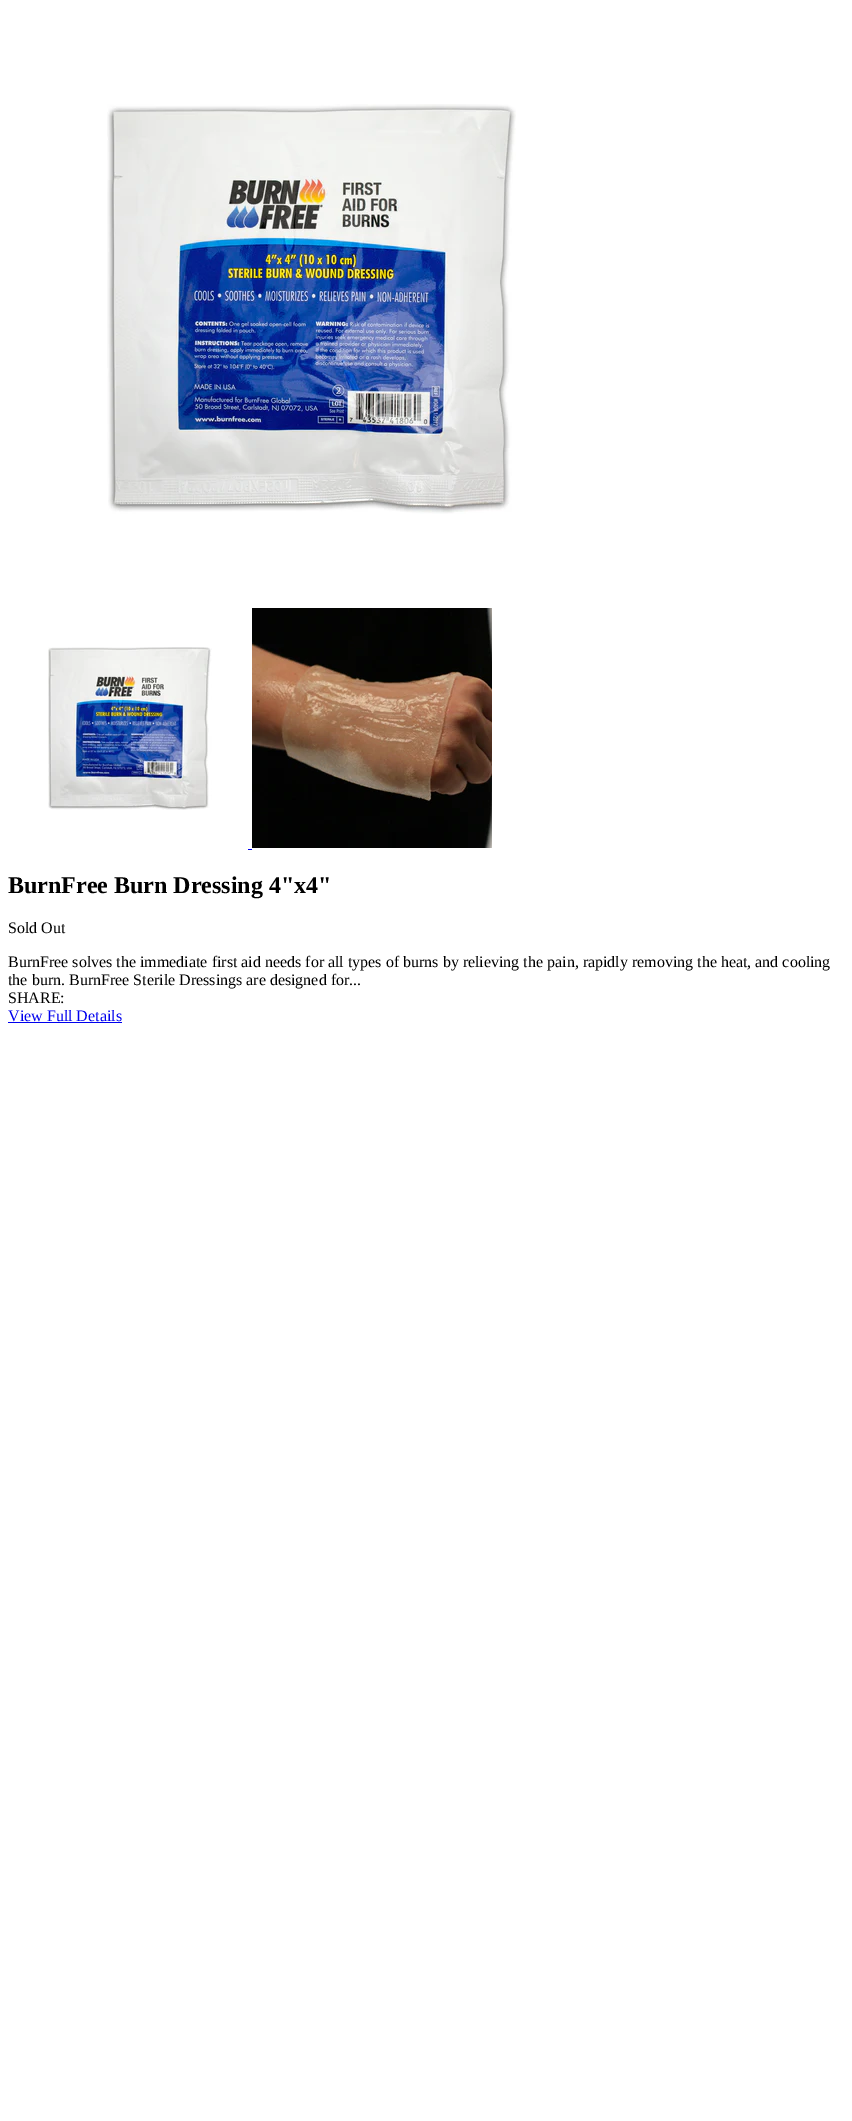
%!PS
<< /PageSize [852 2121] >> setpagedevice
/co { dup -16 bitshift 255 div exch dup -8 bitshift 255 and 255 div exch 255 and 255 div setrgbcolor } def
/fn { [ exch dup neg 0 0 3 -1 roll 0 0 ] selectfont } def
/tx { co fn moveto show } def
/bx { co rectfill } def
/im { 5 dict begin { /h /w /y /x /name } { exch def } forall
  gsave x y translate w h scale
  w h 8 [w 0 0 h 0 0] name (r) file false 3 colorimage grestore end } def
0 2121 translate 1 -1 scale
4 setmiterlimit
0 0 852 2121 16#FFFFFF bx
(media/1.raw) 107 104 409 410 im
(media/2.raw) 48 647 164 163 im
(media/3.raw) 252 608 240 240 im
248 849 4 1 16#0000EE bx
8 1022 114 1 16#0000EE bx
(BurnFree Burn Dressing 4"x4") 8 893 /LiberationSerif-Bold 24 16#000000 tx
(Sold Out) 8 933 /LiberationSerif-Regular 16 16#000000 tx
(BurnFree solves the immediate first aid needs for all types of burns by relieving the pain, rapidly removing the heat, and cooling) 8 967 /LiberationSerif-Regular 16 16#000000 tx
(the burn. BurnFree Sterile Dressings are designed for...) 8 985 /LiberationSerif-Regular 16 16#000000 tx
(SHARE:) 8 1003 /LiberationSerif-Regular 16 16#000000 tx
(View Full Details) 8 1021 /LiberationSerif-Regular 16 16#0000EE tx
showpage
